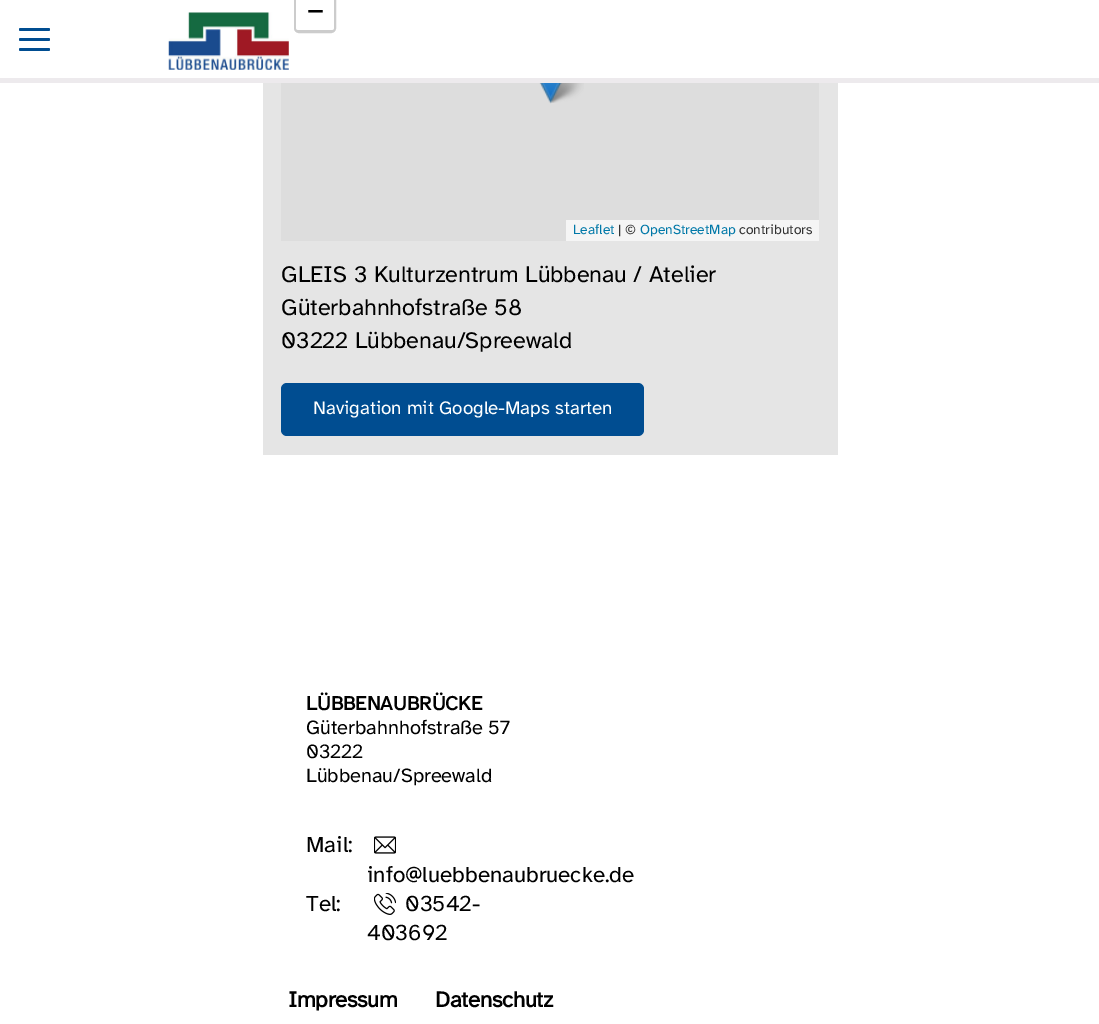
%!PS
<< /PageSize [1099 1024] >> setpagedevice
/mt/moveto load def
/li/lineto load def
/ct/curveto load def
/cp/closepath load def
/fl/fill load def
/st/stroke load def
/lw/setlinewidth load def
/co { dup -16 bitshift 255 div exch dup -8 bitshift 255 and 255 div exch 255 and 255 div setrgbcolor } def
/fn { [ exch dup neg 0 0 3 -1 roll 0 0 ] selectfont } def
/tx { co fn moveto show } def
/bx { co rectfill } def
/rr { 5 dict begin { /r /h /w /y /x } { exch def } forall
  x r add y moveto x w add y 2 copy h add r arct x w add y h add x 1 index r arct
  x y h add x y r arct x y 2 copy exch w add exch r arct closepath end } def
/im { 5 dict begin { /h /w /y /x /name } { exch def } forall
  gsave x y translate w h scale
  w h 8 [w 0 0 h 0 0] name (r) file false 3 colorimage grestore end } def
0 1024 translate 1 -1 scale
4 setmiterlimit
0 0 1099 1024 16#FFFFFF bx
263 83 575 372 16#E5E5E5 bx
281 83 538 158 16#DDDDDD bx
16#CCCCCC co
3 lw
295.5 -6.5 39 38 3.5 rr st
16#FFFFFF co
296 -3 mt 334 -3 li 334 27.5 li 334 29 333 30 331.5 30 ct 298.5 30 li 297 30 296 29 296 27.5 ct cp fl
566 220 253 21 16#F5F5F5 bx
(media/2.raw) 546 83 38 20 im
(media/1.raw) 539 83 23 21 im
16#004D91 co
281 383 363 53 6 rr fl
0 78 1099 5 16#EDEAED bx
16#004D91 co
19 28 31 3 1.5 rr fl
19 38 31 3 1.5 rr fl
19 48 31 3 1.5 rr fl
(media/3.raw) 168 12 121 58 im
(media/4.raw) 374 836 22 18 im
(media/5.raw) 374 893 22 22 im
(−) 307 20 /DejaVuSansMono-Regular 28 16#000000 tx
(Leaflet) 573 234 /AtkinsonHyperlegible-Regular 13.75 16#0078A8 tx
(| ©) 618 234 /AtkinsonHyperlegible-Regular 13.75 16#333333 tx
(OpenStreetMap) 640 234 /AtkinsonHyperlegible-Regular 13.75 16#0078A8 tx
(contributors) 739 234 /AtkinsonHyperlegible-Regular 13.75 16#333333 tx
(GLEIS 3 Kulturzentrum Lübbenau / Atelier) 281 282 /AtkinsonHyperlegible-Regular 23.4 16#000000 tx
(Güterbahnhofstraße 58) 281 315 /AtkinsonHyperlegible-Regular 23.4 16#000000 tx
(03222 Lübbenau/Spreewald) 281 348 /AtkinsonHyperlegible-Regular 23.4 16#000000 tx
(Navigation mit Google-Maps starten) 313 414 /AtkinsonHyperlegible-Regular 18.75 16#FFFFFF tx
(LÜBBENAUBRÜCKE) 306 710 /AtkinsonHyperlegible-Bold 20 16#000000 tx
(Güterbahnhofstraße 57) 306 734 /AtkinsonHyperlegible-Regular 20 16#000000 tx
(03222) 306 758 /AtkinsonHyperlegible-Regular 20 16#000000 tx
(Lübbenau/Spreewald) 306 782 /AtkinsonHyperlegible-Regular 20 16#000000 tx
(Mail:) 306 852 /AtkinsonHyperlegible-Regular 22.5 16#000000 tx
(info@luebbenaubruecke.de) 367 882 /AtkinsonHyperlegible-Regular 22.5 16#000000 tx
(Tel:) 306 911 /AtkinsonHyperlegible-Regular 22.5 16#000000 tx
(03542-) 405 911 /AtkinsonHyperlegible-Regular 22.5 16#000000 tx
(403692) 367 940 /AtkinsonHyperlegible-Regular 22.5 16#000000 tx
/AtkinsonHyperlegible-Bold 22.5 fn
288 1007 mt -.4 0 (Impressum) ashow
435 1007 mt -.4 0 (Datenschutz) ashow
showpage
